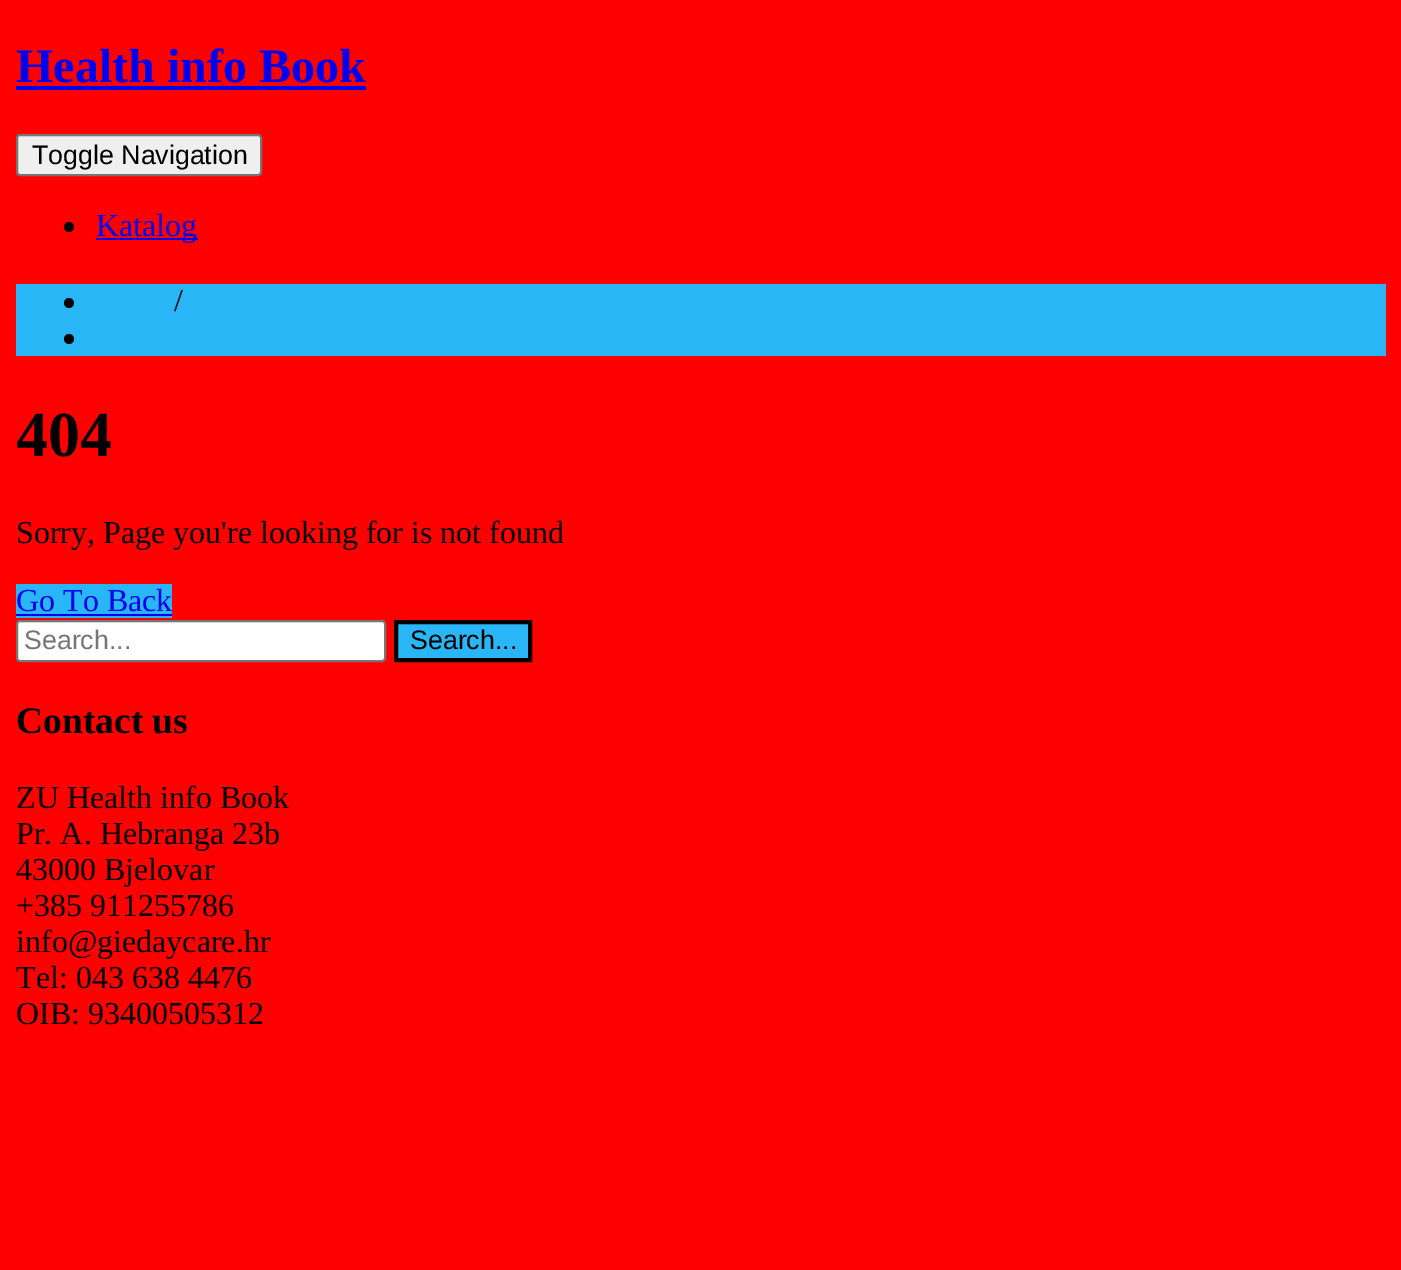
%!PS
<< /PageSize [1401 1270] >> setpagedevice
/mt/moveto load def
/li/lineto load def
/cp/closepath load def
/fl/fill load def
/st/stroke load def
/gs/gsave load def
/gr/grestore load def
/lw/setlinewidth load def
/co { dup -16 bitshift 255 div exch dup -8 bitshift 255 and 255 div exch 255 and 255 div setrgbcolor } def
/fn { [ exch dup neg 0 0 3 -1 roll 0 0 ] selectfont } def
/tx { co fn moveto show } def
/bx { co rectfill } def
/ci { newpath 0 360 arc closepath } def
/rr { 5 dict begin { /r /h /w /y /x } { exch def } forall
  x r add y moveto x w add y 2 copy h add r arct x w add y h add x 1 index r arct
  x y h add x y r arct x y 2 copy exch w add exch r arct closepath end } def
0 1270 translate 1 -1 scale
4 setmiterlimit
0 0 1401 1270 16#FF0000 bx
16 86 350 4 16#0000EE bx
16#EFEFEF co
17 135 244 40 3 rr gs fl gr
16#767676 co
2 lw
st
16#000000 co
69 227 5 ci fl
96 238 102 2 16#0000EE bx
16 284 1370 72 16#29B6F6 bx
16#000000 co
69 303 5 ci fl
69 339 5 ci fl
16 584 156 34 16#29B6F6 bx
16 614 156 2 16#0000EE bx
16#FFFFFF co
17 621 368 40 3 rr gs fl gr
16#767676 co
st
16#29B6F6 co
396 622 mt 530 622 li 530 660 li 396 660 li cp gs fl gr
16#000000 co
4 lw
st
(Health info Book) 16 82 /LiberationSerif-Bold 48 16#0000EE tx
(Toggle Navigation) 32 164 /LiberationSans-Regular 26.75 16#000000 tx
(Katalog) 96 236 /LiberationSerif-Regular 32 16#0000EE tx
(/) 174 311 /LiberationSerif-Regular 32 16#000000 tx
(404) 16 456 /LiberationSerif-Bold 64 16#000000 tx
(Sorry, Page you're looking for is not found) 16 543 /LiberationSerif-Regular 32 16#000000 tx
(Go To Back) 16 611 /LiberationSerif-Regular 32 16#0000EE tx
(Search...) 24 649 /LiberationSans-Regular 26.75 16#757575 tx
(Search...) 410 649 /LiberationSans-Regular 26.75 16#000000 tx
(Contact us) 16 733 /LiberationSerif-Bold 37.5 16#000000 tx
(ZU Health info Book) 16 808 /LiberationSerif-Regular 32 16#000000 tx
(Pr. A. Hebranga 23b) 16 844 /LiberationSerif-Regular 32 16#000000 tx
(43000 Bjelovar) 16 880 /LiberationSerif-Regular 32 16#000000 tx
(+385 911255786) 16 916 /LiberationSerif-Regular 32 16#000000 tx
(info@giedaycare.hr) 16 952 /LiberationSerif-Regular 32 16#000000 tx
(Tel: 043 638 4476) 16 988 /LiberationSerif-Regular 32 16#000000 tx
(OIB: 93400505312) 16 1024 /LiberationSerif-Regular 32 16#000000 tx
showpage
